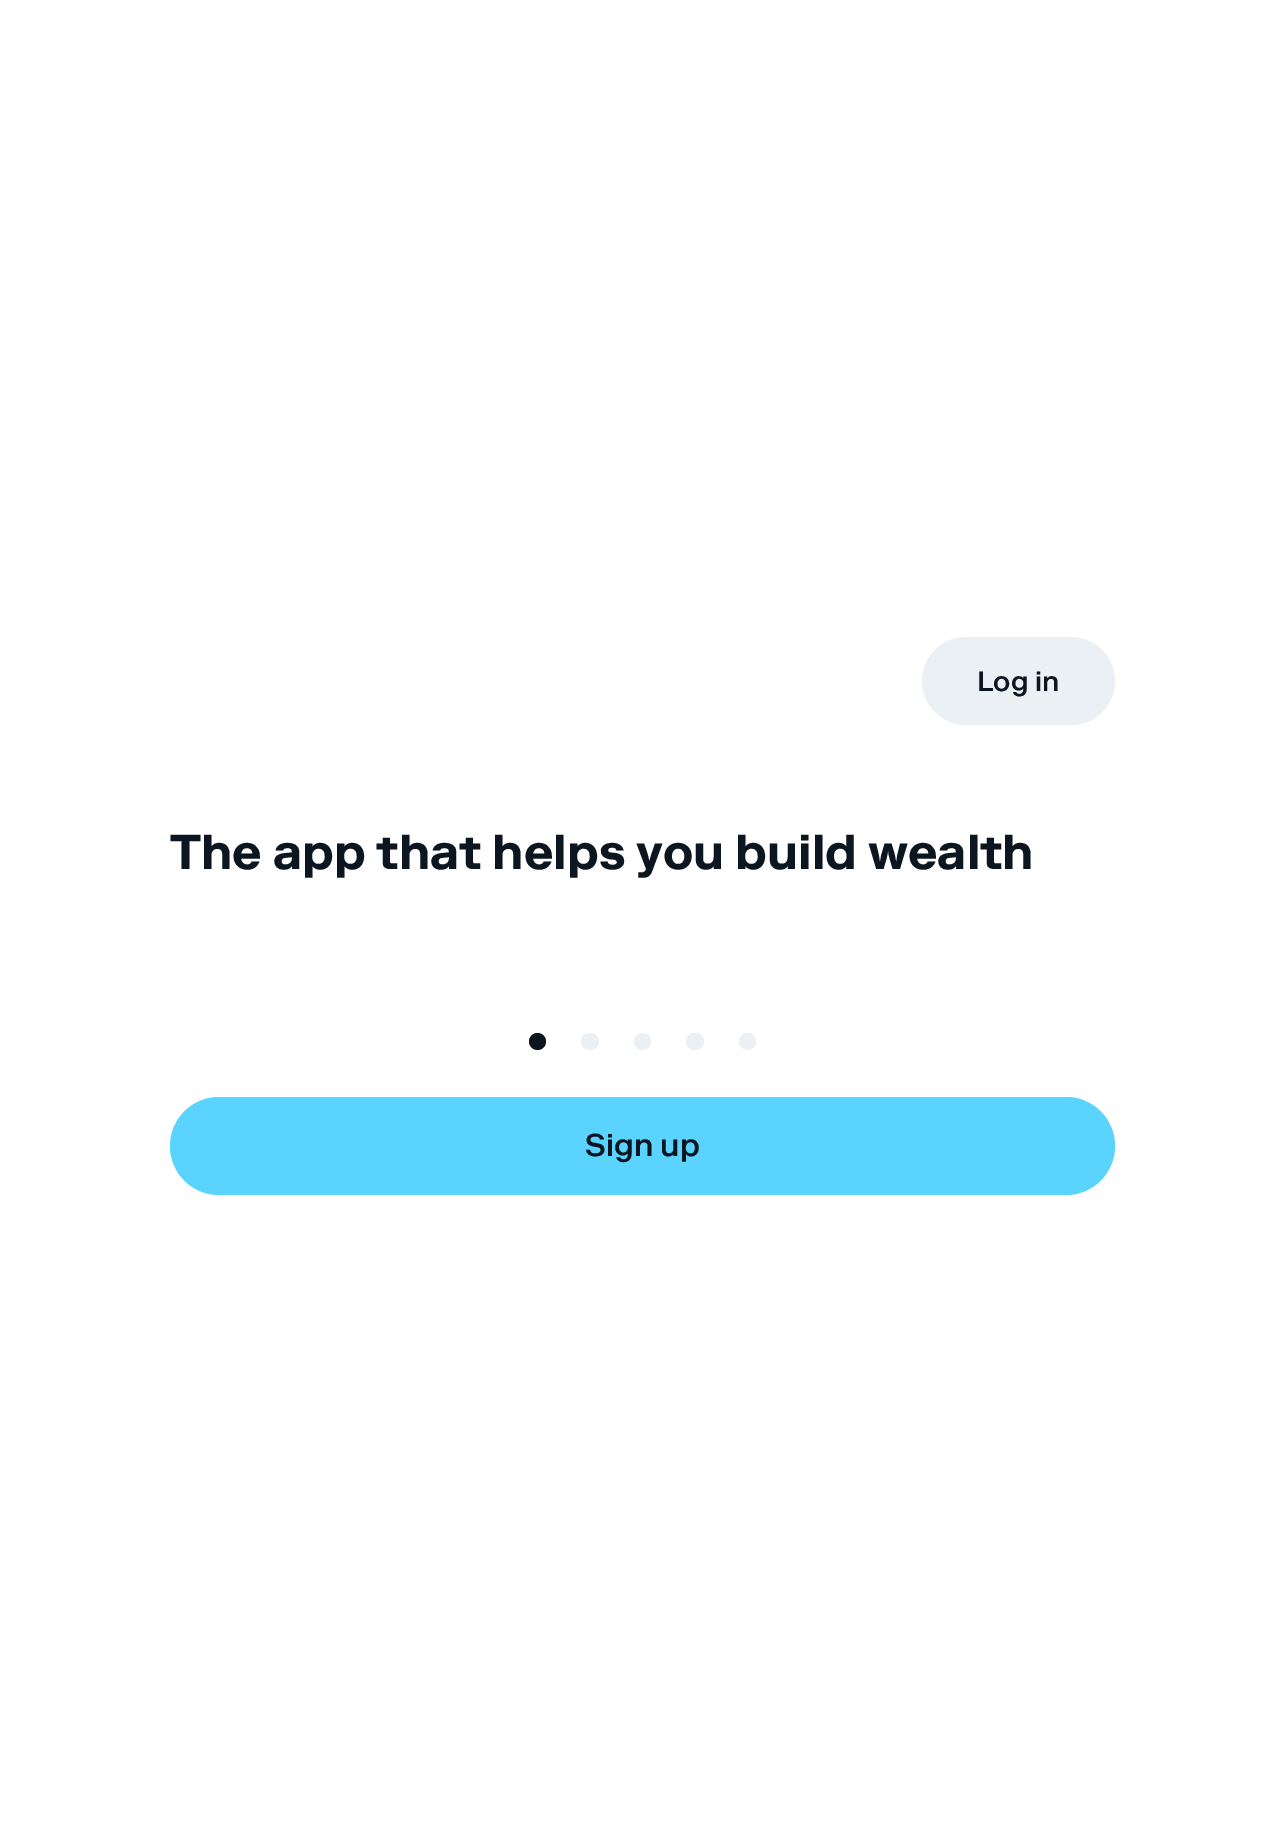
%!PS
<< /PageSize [1284 1832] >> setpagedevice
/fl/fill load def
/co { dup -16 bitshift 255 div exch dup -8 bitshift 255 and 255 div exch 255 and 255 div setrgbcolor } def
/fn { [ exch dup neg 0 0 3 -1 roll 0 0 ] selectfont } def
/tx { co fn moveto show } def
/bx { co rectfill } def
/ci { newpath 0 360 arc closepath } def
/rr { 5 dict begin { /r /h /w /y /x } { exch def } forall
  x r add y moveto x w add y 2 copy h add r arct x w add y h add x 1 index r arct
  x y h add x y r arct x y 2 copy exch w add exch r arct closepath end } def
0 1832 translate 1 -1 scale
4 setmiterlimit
0 0 1284 1832 16#FFFFFF bx
16#EBF0F5 co
922 637 193 88 44 rr fl
16#0B1620 co
537.5 1041.5 8.5 ci fl
16#EBF0F5 co
581 1033 18 17 8.5 rr fl
642.5 1041.5 8.5 ci fl
686 1033 18 17 8.5 rr fl
747.5 1041.5 8.5 ci fl
16#5AD4FF co
170 1097 945 98 49 rr fl
(Log in) 977 691 /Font-Medium 28 16#0B1620 tx
(The app that helps you build wealth) 170 869 /Font-Bold 49 16#0B1620 tx
(Sign up) 585 1156 /Font-Medium 31.5 16#0B1620 tx
showpage
